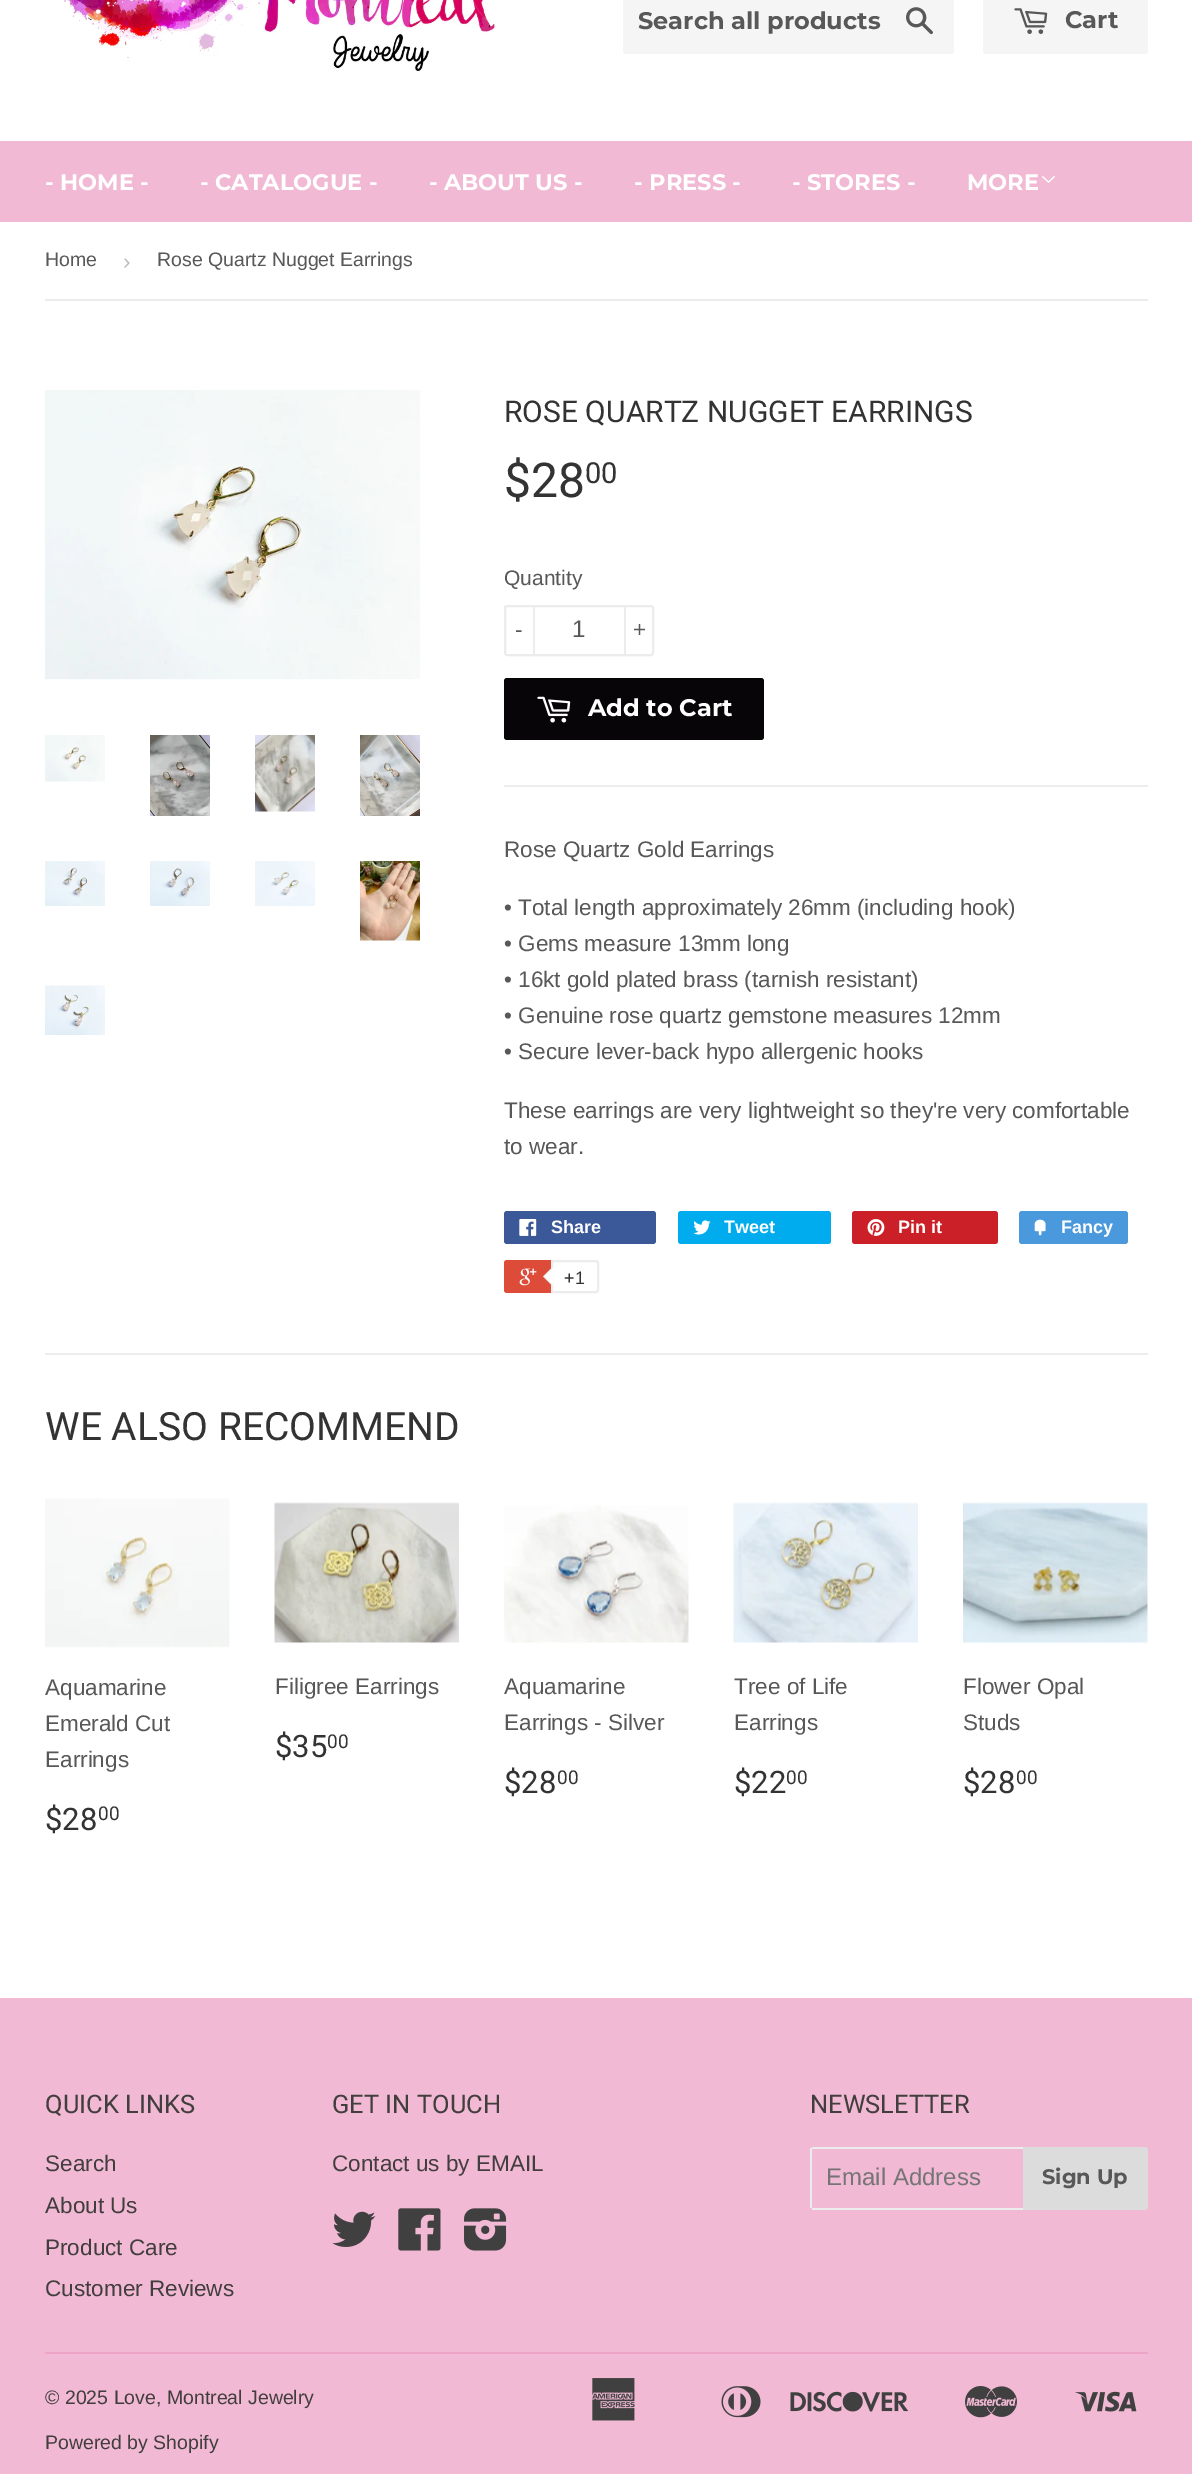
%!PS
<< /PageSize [1192 2474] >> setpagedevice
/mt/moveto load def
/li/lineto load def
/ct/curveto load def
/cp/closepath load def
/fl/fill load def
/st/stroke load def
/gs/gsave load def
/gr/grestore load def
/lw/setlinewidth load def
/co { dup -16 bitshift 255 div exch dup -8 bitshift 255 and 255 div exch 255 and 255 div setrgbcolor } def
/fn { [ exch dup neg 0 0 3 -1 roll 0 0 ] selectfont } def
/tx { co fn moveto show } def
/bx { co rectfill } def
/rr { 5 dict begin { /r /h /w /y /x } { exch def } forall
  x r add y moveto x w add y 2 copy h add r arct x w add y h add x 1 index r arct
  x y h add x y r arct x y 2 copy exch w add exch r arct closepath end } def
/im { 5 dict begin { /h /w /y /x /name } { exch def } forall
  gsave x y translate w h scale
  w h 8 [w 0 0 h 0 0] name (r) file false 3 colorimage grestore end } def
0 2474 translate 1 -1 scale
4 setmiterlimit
0 0 1192 2474 16#FFFFFF bx
(media/1.raw) 59 0 437 72 im
16#F5F5F5 co
623 -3 331 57 3 rr fl
(media/2.raw) 906 7 27 28 im
983 -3 165 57 3 rr fl
(media/3.raw) 1014 8 34 26 im
0 141 1192 81 16#F1B9D4 bx
(media/4.raw) 1042 176 13 7 im
45 299 1103 2 16#ECECEC bx
(media/5.raw) 45 390 375 290 im
(media/6.raw) 45 735 60 47 im
(media/7.raw) 150 735 60 81 im
(media/8.raw) 255 735 60 77 im
(media/9.raw) 360 735 60 81 im
(media/10.raw) 45 861 60 45 im
(media/11.raw) 150 861 60 45 im
(media/12.raw) 255 861 60 45 im
(media/13.raw) 360 861 60 80 im
(media/14.raw) 45 985 60 50 im
2 lw
505 606 148 49 2 rr st
533 605 2 51 16#ECECEC bx
624 605 2 51 16#ECECEC bx
16#070507 co
504 678 260 62 3 rr fl
(media/15.raw) 537 696 34 27 im
504 785 644 2 16#ECECEC bx
16#3B5998 co
504 1211 152 33 3 rr fl
(media/16.raw) 519 1219 18 17 im
16#00ACED co
678 1211 153 33 3 rr fl
(media/17.raw) 693 1220 18 15 im
16#CB2027 co
852 1211 146 33 3 rr fl
(media/18.raw) 867 1219 18 17 im
16#4999DC co
1019 1211 109 33 3 rr fl
(media/19.raw) 1034 1219 12 17 im
16#DD4B39 co
504 1260 92 33 3 rr fl
(media/20.raw) 519 1268 18 18 im
16#FFFFFF co
552 1261 mt 596 1261 li 597 1261 598 1262 598 1263 ct 598 1290 li 598 1291 597 1292 596 1292 ct 552 1292 li cp gs fl gr
16#ECECEC co
st
552 1267.5 mt 552 1285.5 li 543 1276.5 li cp fl
16#FFFFFF co
553.5 1267.5 mt 553.5 1285.5 li 544.5 1276.5 li cp fl
45 1353 1103 2 16#ECECEC bx
(media/21.raw) 45 1498 185 150 im
(media/22.raw) 274 1502 185 141 im
(media/23.raw) 504 1505 185 138 im
(media/24.raw) 733 1502 185 141 im
(media/25.raw) 963 1502 185 142 im
0 1998 1192 476 16#F1B9D4 bx
(media/26.raw) 332 2211 44 36 im
(media/27.raw) 398 2208 43 43 im
(media/28.raw) 464 2208 43 43 im
812 2147 211 2 16#ECECEC bx
812 2208 211 2 16#ECECEC bx
810 2148 2 60 16#ECECEC bx
16#DCDCDC co
1023 2147 mt 1145 2147 li 1146.5 2147 1148 2148.5 1148 2150 ct 1148 2207 li 1148 2208.5 1146.5 2210 1145 2210 ct 1023 2210 li cp fl
45 2352 1103 2 16#EDA4C7 bx
(media/29.raw) 592 2378 43 43 im
(media/30.raw) 721 2386 40 32 im
(media/31.raw) 790 2391 119 21 im
(media/32.raw) 965 2386 52 32 im
(media/33.raw) 1075 2391 62 21 im
(Search all products) 638 29 /Montserrat-Thin 24 16#585858 tx
(Cart) 1065 28 /Montserrat-Thin 24 16#585858 tx
(- HOME -) 45 190 /Montserrat-Thin 22.5 16#FFFFFF tx
(- CATALOGUE -) 200 190 /Montserrat-Thin 22.5 16#FFFFFF tx
(- ABOUT US -) 429 190 /Montserrat-Thin 22.5 16#FFFFFF tx
(- PRESS -) 634 190 /Montserrat-Thin 22.5 16#FFFFFF tx
(- STORES -) 792 190 /Montserrat-Thin 22.5 16#FFFFFF tx
(MORE) 967 190 /Montserrat-Thin 22.5 16#FFFFFF tx
(Home) 45 266 /LiberationSans-Regular 19.5 16#585858 tx
(›) 123 269 /LiberationSans-Regular 22.5 16#BBBBBB tx
(Rose Quartz Nugget Earrings) 157 266 /LiberationSans-Regular 19.5 16#585858 tx
(ROSE QUARTZ NUGGET EARRINGS) 504 422 /Roboto-Regular 30 16#333333 tx
($28) 504 497 /Roboto-Regular 48 16#333333 tx
(00) 585 483 /Roboto-Regular 29 16#333333 tx
(Quantity) 504 585 /LiberationSans-Regular 21 16#585858 tx
(-) 515 637 /LiberationSans-Regular 22.5 16#585858 tx
(1) 572 637 /LiberationSans-Regular 24 16#585858 tx
(+) 633 637 /LiberationSans-Regular 22.5 16#585858 tx
(Add to Cart) 588 716 /Montserrat-Thin 24 16#FFFFFF tx
(Rose Quartz Gold Earrings) 504 857 /LiberationSans-Regular 22.5 16#585858 tx
(• Total length approximately 26mm \(including hook\)) 504 915 /LiberationSans-Regular 22.5 16#585858 tx
(• Gems measure 13mm long) 504 951 /LiberationSans-Regular 22.5 16#585858 tx
(• 16kt gold plated brass \(tarnish resistant\)) 504 987 /LiberationSans-Regular 22.5 16#585858 tx
(• Genuine rose quartz gemstone measures 12mm) 504 1023 /LiberationSans-Regular 22.5 16#585858 tx
(• Secure lever-back hypo allergenic hooks) 504 1059 /LiberationSans-Regular 22.5 16#585858 tx
(These earrings are very lightweight so they're very comfortable) 504 1118 /LiberationSans-Regular 22.5 16#585858 tx
(to wear.) 504 1154 /LiberationSans-Regular 22.5 16#585858 tx
(Share) 551 1233 /LiberationSans-Bold 18 16#FFFFFF tx
(Tweet) 724 1233 /LiberationSans-Bold 18 16#FFFFFF tx
(Pin it) 898 1233 /LiberationSans-Bold 18 16#FFFFFF tx
(Fancy) 1061 1233 /LiberationSans-Bold 18 16#FFFFFF tx
(+1) 564 1284 /LiberationSans-Regular 18 16#333333 tx
(WE ALSO RECOMMEND) 45 1440 /Roboto-Regular 39 16#333333 tx
(Aquamarine) 45 1695 /LiberationSans-Regular 22.5 16#585858 tx
(Emerald Cut) 45 1731 /LiberationSans-Regular 22.5 16#585858 tx
(Earrings) 45 1767 /LiberationSans-Regular 22.5 16#585858 tx
($28) 45 1830 /Roboto-Regular 31 16#333333 tx
(00) 98 1820 /Roboto-Regular 19 16#333333 tx
(Filigree Earrings) 275 1694 /LiberationSans-Regular 22.5 16#585858 tx
($35) 275 1757 /Roboto-Regular 31 16#333333 tx
(00) 327 1748 /Roboto-Regular 19 16#333333 tx
(Aquamarine) 504 1694 /LiberationSans-Regular 22.5 16#585858 tx
(Earrings - Silver) 504 1730 /LiberationSans-Regular 22.5 16#585858 tx
($28) 504 1793 /Roboto-Regular 31 16#333333 tx
(00) 557 1784 /Roboto-Regular 19 16#333333 tx
(Tree of Life) 734 1694 /LiberationSans-Regular 22.5 16#585858 tx
(Earrings) 734 1730 /LiberationSans-Regular 22.5 16#585858 tx
($22) 734 1793 /Roboto-Regular 31 16#333333 tx
(00) 786 1784 /Roboto-Regular 19 16#333333 tx
(Flower Opal) 963 1694 /LiberationSans-Regular 22.5 16#585858 tx
(Studs) 963 1730 /LiberationSans-Regular 22.5 16#585858 tx
($28) 963 1793 /Roboto-Regular 31 16#333333 tx
(00) 1016 1784 /Roboto-Regular 19 16#333333 tx
(QUICK LINKS) 45 2113 /Roboto-Regular 25.5 16#433E3E tx
(Search) 45 2171 /LiberationSans-Regular 22.5 16#433E3E tx
(About Us) 45 2213 /LiberationSans-Regular 22.5 16#433E3E tx
(Product Care) 45 2255 /LiberationSans-Regular 22.5 16#433E3E tx
(Customer Reviews) 45 2296 /LiberationSans-Regular 22.5 16#433E3E tx
(GET IN TOUCH) 332 2113 /Roboto-Regular 25.5 16#433E3E tx
(Contact us by EMAIL) 332 2171 /LiberationSans-Regular 22.5 16#433E3E tx
(NEWSLETTER) 810 2113 /Roboto-Regular 25.5 16#433E3E tx
(Email Address) 826 2185 /LiberationSans-Regular 24 16#757575 tx
(Sign Up) 1042 2184 /Montserrat-Thin 21 16#585858 tx
(© 2025 Love, Montreal Jewelry) 45 2404 /LiberationSans-Regular 19.5 16#433E3E tx
(Powered by Shopify) 45 2449 /LiberationSans-Regular 19.5 16#433E3E tx
showpage
